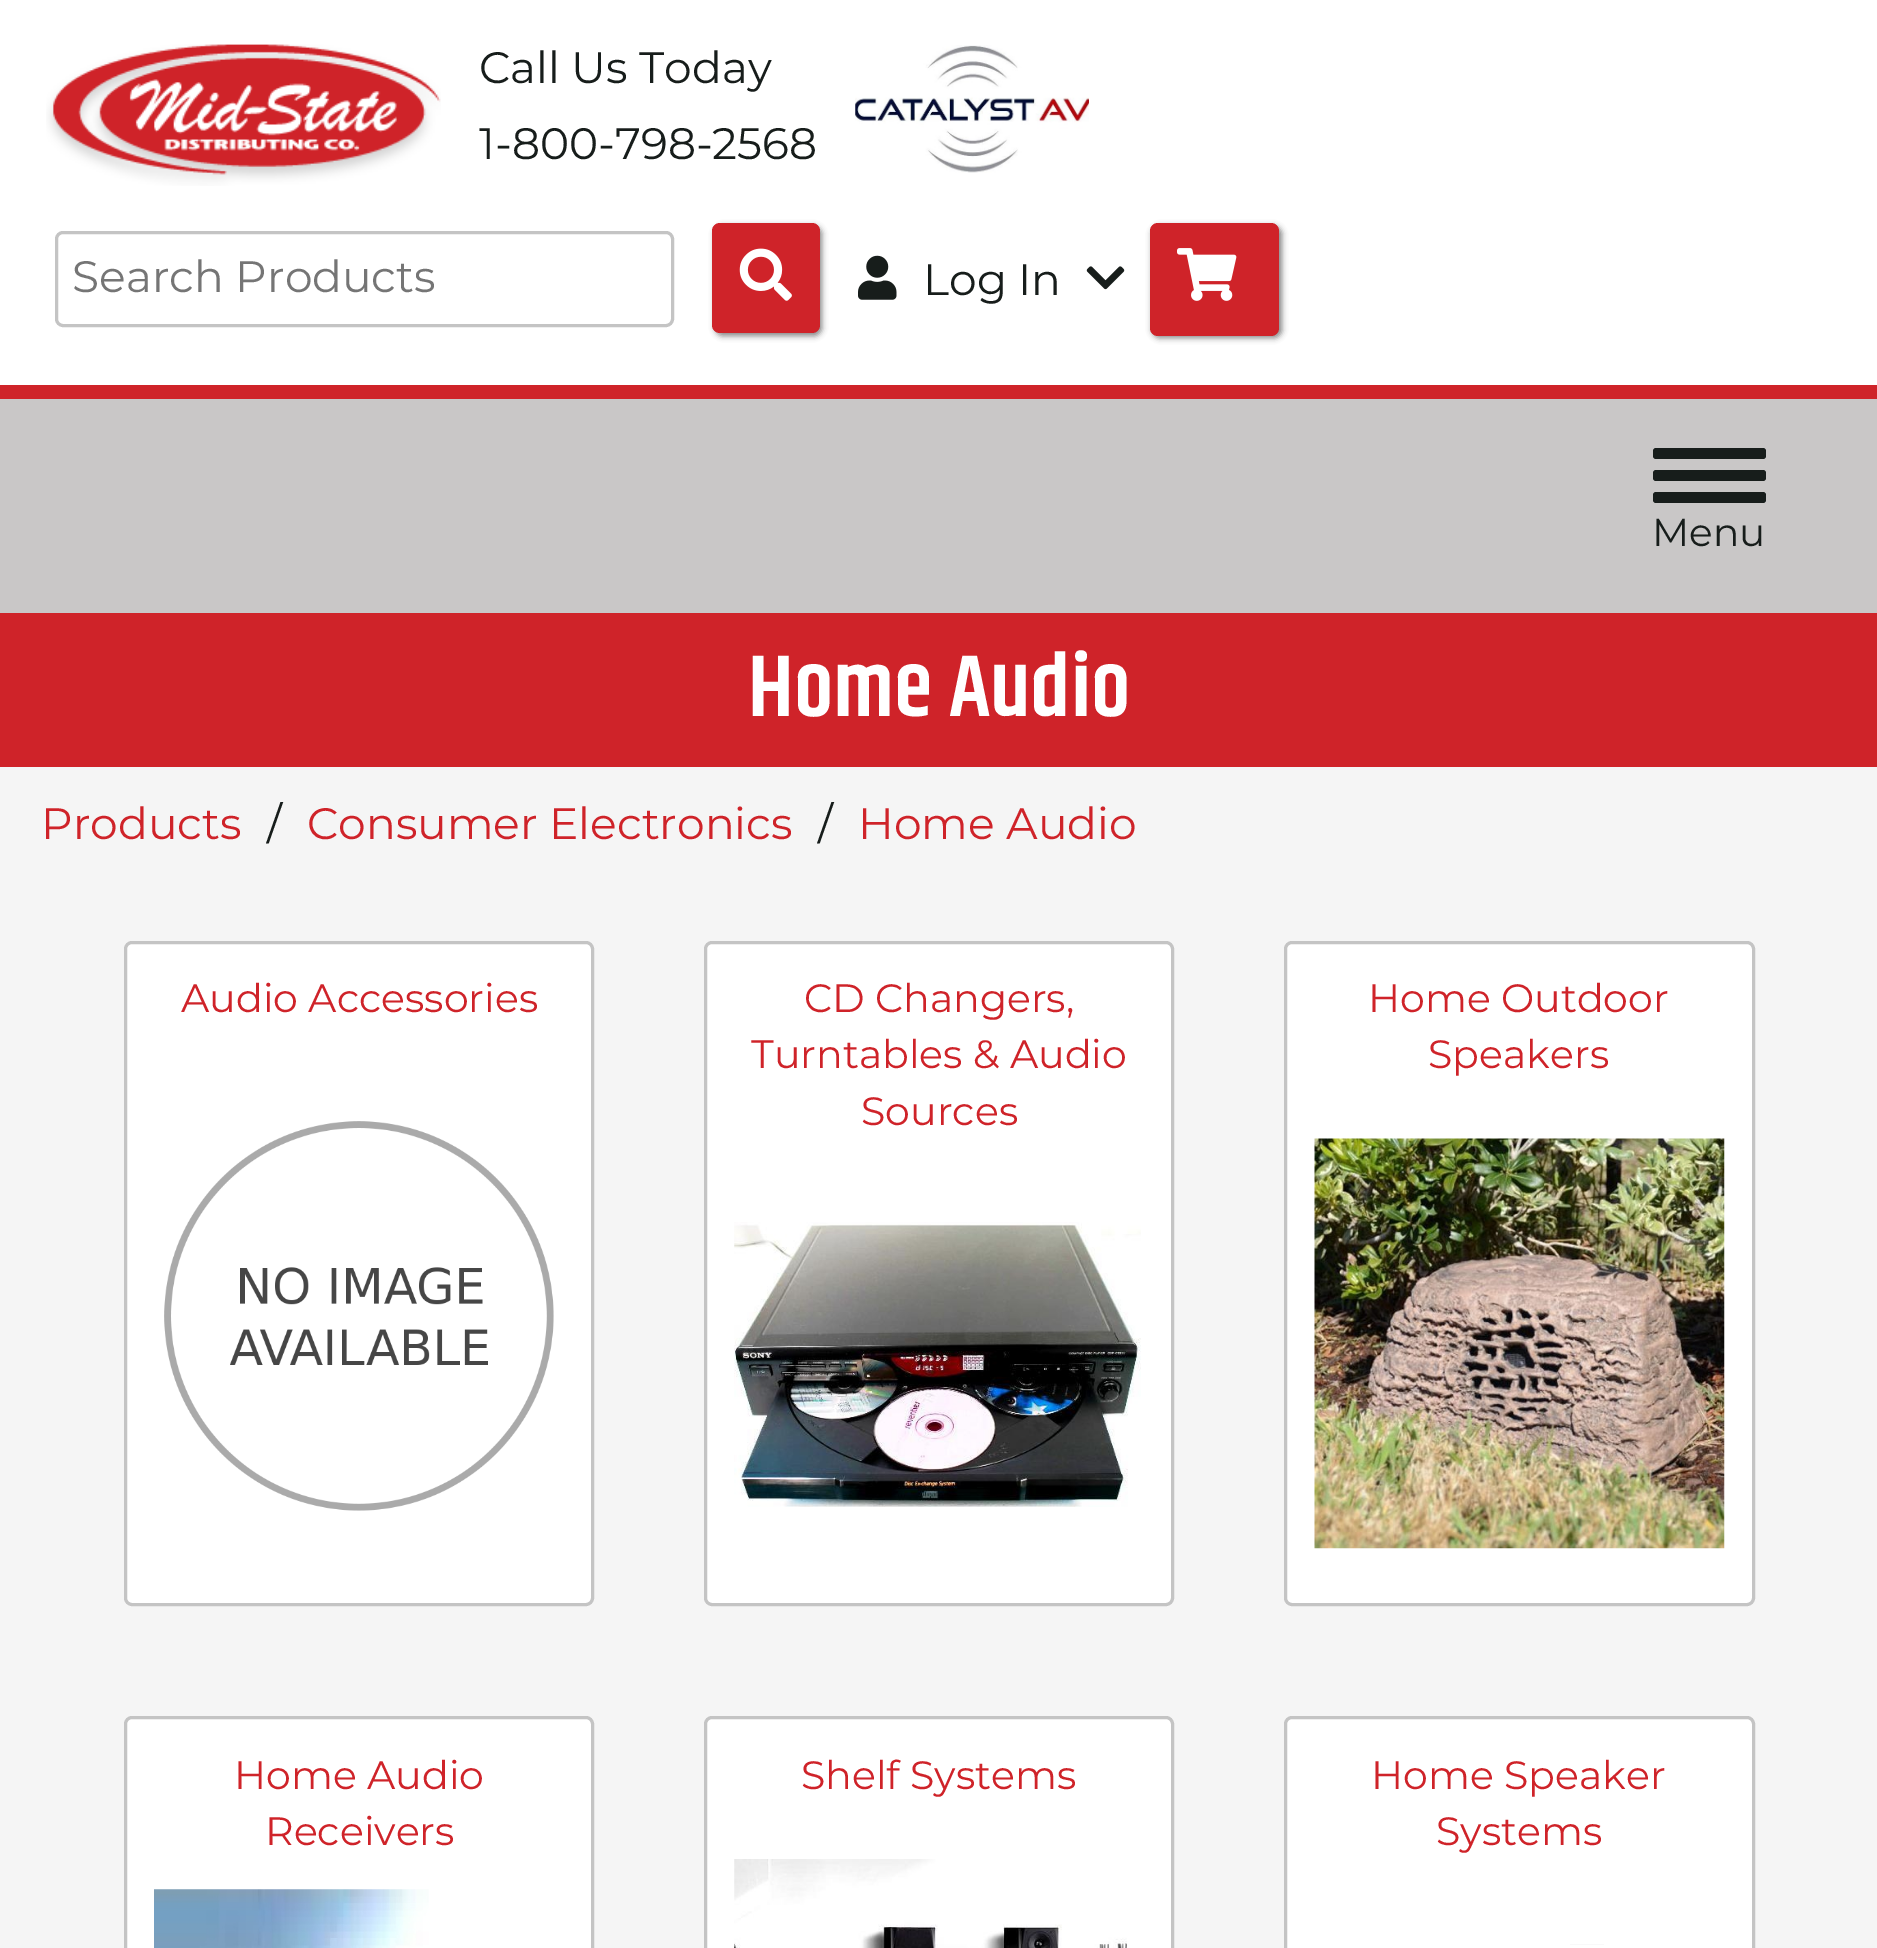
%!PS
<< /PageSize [1877 1948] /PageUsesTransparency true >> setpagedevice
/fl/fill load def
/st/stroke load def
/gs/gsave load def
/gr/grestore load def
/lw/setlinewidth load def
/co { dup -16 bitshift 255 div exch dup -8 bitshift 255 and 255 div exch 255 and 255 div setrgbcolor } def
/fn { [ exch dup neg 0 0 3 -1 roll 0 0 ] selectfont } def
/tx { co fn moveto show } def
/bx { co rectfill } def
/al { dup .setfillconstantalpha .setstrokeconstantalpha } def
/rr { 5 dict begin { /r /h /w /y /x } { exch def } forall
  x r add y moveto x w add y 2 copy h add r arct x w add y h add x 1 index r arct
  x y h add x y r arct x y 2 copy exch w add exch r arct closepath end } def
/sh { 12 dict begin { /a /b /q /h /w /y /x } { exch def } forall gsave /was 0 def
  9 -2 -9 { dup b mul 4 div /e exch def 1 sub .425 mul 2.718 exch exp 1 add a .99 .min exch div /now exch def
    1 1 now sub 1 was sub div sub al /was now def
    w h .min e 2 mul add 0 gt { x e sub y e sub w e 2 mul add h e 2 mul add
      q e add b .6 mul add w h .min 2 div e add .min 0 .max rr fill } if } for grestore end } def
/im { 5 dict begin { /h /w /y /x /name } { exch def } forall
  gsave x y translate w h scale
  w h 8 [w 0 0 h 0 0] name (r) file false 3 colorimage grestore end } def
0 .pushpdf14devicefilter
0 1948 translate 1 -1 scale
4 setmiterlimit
0 0 1877 1948 16#F5F5F5 bx
0 0 1877 385 16#FFFFFF bx
0 385 1877 14 16#CF2329 bx
(media/1.raw) 46 44 395 142 im
(media/2.raw) 855 45 234 128 im
16#C4C4C4 co
3 lw
56.5 232.5 616 93 6.5 rr st
16#848484 co
715 226 107 110 8 3 1 sh
16#CF2329 co
712 223 108 110 8 rr fl
(media/3.raw) 739 248 53 53 im
(media/4.raw) 858 255 39 45 im
(media/5.raw) 1086 266 39 24 im
16#848484 co
1152 226 130 112 8 3 1 sh
16#CF2329 co
1150 223 129 113 8 rr fl
(media/6.raw) 1177 248 60 53 im
0 399 1877 214 16#C9C7C7 bx
16#171D1B co
1653 448 113 11 3 rr fl
1653 470 113 11 3 rr fl
1653 492 113 11 3 rr fl
0 613 1877 154 16#CF2329 bx
16#FFFFFF co
125.5 942.5 467 662 6.5 rr gs fl gr
16#C4C4C4 co
st
(media/7.raw) 164 1121 390 390 im
16#FFFFFF co
705.5 942.5 467 662 6.5 rr gs fl gr
16#C4C4C4 co
st
(media/8.raw) 734 1222 407 285 im
16#FFFFFF co
1285.5 942.5 468 662 6.5 rr gs fl gr
16#C4C4C4 co
st
(media/9.raw) 1314 1138 411 411 im
16#FFFFFF co
125.5 1717.5 467 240 6.5 rr gs fl gr
16#C4C4C4 co
st
(media/10.raw) 154 1889 275 59 im
16#FFFFFF co
705.5 1717.5 467 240 6.5 rr gs fl gr
16#C4C4C4 co
st
(media/11.raw) 734 1859 393 89 im
16#FFFFFF co
1285.5 1717.5 468 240 6.5 rr gs fl gr
16#C4C4C4 co
st
1570 1944 34 1 16#F9F9F9 bx
(Call Us Today) 479 83 /Montserrat-Regular 44 16#171D1B tx
(1-800-798-2568) 479 159 /Montserrat-Regular 44 16#171D1B tx
(Search Products) 72 292 /Montserrat-Regular 44 16#757575 tx
(Log In) 923 295 /Montserrat-Regular 44 16#171D1B tx
(Menu) 1652 546 /Montserrat-Regular 39 16#171D1B tx
(Home Audio) 748 716 /Khand-SemiBold 88 16#FFFFFF tx
(Products) 41 839 /Montserrat-Regular 44 16#CF2329 tx
(/) 267 839 /Montserrat-Regular 44 16#171D1B tx
(Consumer Electronics) 307 839 /Montserrat-Regular 44 16#CF2329 tx
(/) 818 839 /Montserrat-Regular 44 16#171D1B tx
(Home Audio) 858 839 /Montserrat-Regular 44 16#CF2329 tx
(Audio Accessories) 181 1012 /Montserrat-Regular 39.5 16#CF2329 tx
(CD Changers,) 804 1012 /Montserrat-Regular 39.5 16#CF2329 tx
(Turntables & Audio) 751 1068 /Montserrat-Regular 39.5 16#CF2329 tx
(Sources) 861 1125 /Montserrat-Regular 39.5 16#CF2329 tx
(Home Outdoor) 1368 1012 /Montserrat-Regular 39.5 16#CF2329 tx
(Speakers) 1428 1068 /Montserrat-Regular 39.5 16#CF2329 tx
(Home Audio) 234 1789 /Montserrat-Regular 39.5 16#CF2329 tx
(Receivers) 265 1845 /Montserrat-Regular 39.5 16#CF2329 tx
(Shelf Systems) 801 1789 /Montserrat-Regular 39.5 16#CF2329 tx
(Home Speaker) 1371 1789 /Montserrat-Regular 39.5 16#CF2329 tx
(Systems) 1436 1845 /Montserrat-Regular 39.5 16#CF2329 tx
.poppdf14devicefilter showpage
